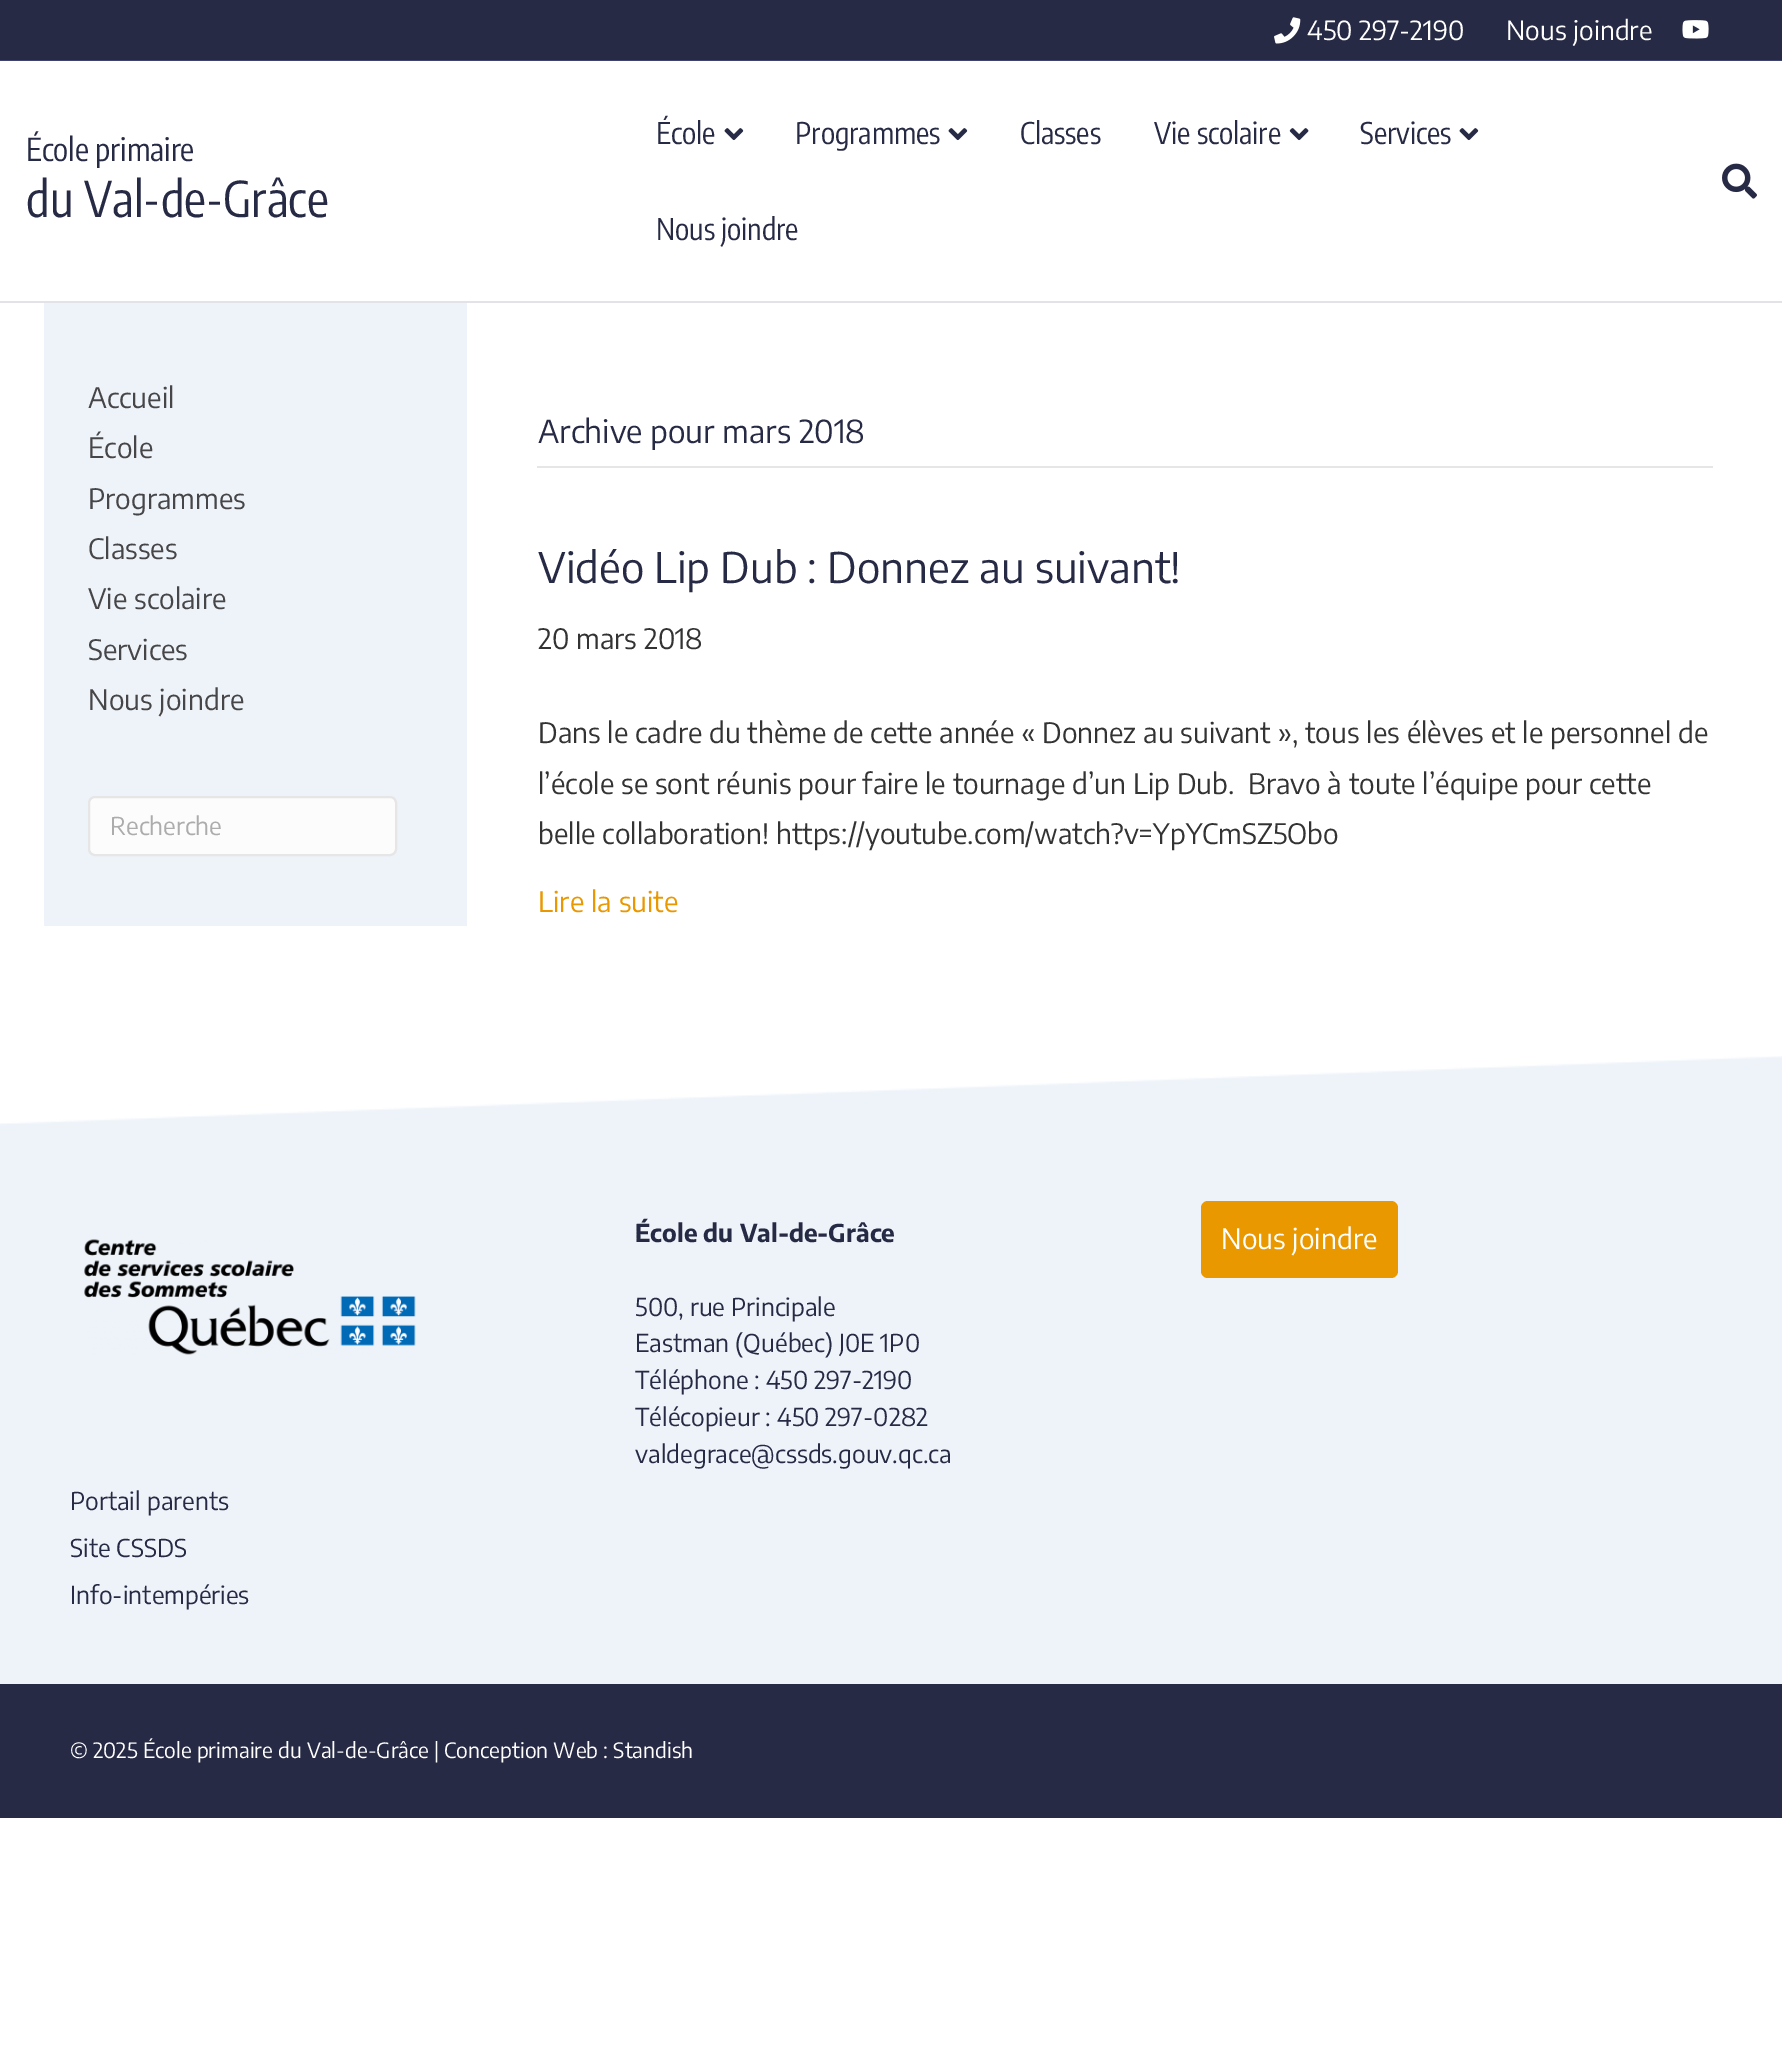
%!PS
<< /PageSize [1782 2063] >> setpagedevice
/fl/fill load def
/st/stroke load def
/gs/gsave load def
/gr/grestore load def
/lw/setlinewidth load def
/co { dup -16 bitshift 255 div exch dup -8 bitshift 255 and 255 div exch 255 and 255 div setrgbcolor } def
/fn { [ exch dup neg 0 0 3 -1 roll 0 0 ] selectfont } def
/tx { co fn moveto show } def
/bx { co rectfill } def
/rr { 5 dict begin { /r /h /w /y /x } { exch def } forall
  x r add y moveto x w add y 2 copy h add r arct x w add y h add x 1 index r arct
  x y h add x y r arct x y 2 copy exch w add exch r arct closepath end } def
/im { 5 dict begin { /h /w /y /x /name } { exch def } forall
  gsave x y translate w h scale
  w h 8 [w 0 0 h 0 0] name (r) file false 3 colorimage grestore end } def
0 2063 translate 1 -1 scale
4 setmiterlimit
0 0 1782 2063 16#FFFFFF bx
0 0 1782 60 16#272A44 bx
0 60 1782 1 16#3F446E bx
(media/1.raw) 1274 17 27 27 im
(media/2.raw) 1682 20 27 19 im
0 301 1782 2 16#E3E3E7 bx
(media/3.raw) 724 128 20 13 im
(media/3.raw) 948 128 20 13 im
(media/4.raw) 1289 128 20 13 im
(media/3.raw) 1459 128 20 13 im
(media/5.raw) 1722 163 35 36 im
44 303 423 623 16#EEF3F9 bx
16#FCFCFC co
89 797 307 58 6 rr gs fl gr
16#E6E6E6 co
2 lw
st
537 466 1176 2 16#E6E6E6 bx
(media/6.raw) 0 1056 1782 71 im
0 1127 1782 557 16#EDF3F9 bx
16#EA9800 co
1201 1201 197 77 7 rr fl
(media/7.raw) 84 1239 332 116 im
0 1684 1782 134 16#272A44 bx
(450 297-2190) 1307 40 /EncodeSansCondensed-Regular 26.25 16#FFFFFF tx
(Nous joindre) 1506 40 /EncodeSansCondensed-Regular 26.25 16#FFFFFF tx
(École primaire) 26 161 /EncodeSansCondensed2-Regular 31.5 16#272A44 tx
(du Val-de-Grâce) 26 217 /EncodeSansCondensed2-Regular 49 16#272A44 tx
(École) 656 144 /EncodeSansCondensed2-Regular 29.75 16#272A44 tx
(Programmes) 795 144 /EncodeSansCondensed2-Regular 29.75 16#272A44 tx
(Classes) 1020 144 /EncodeSansCondensed2-Regular 29.75 16#272A44 tx
(Vie scolaire) 1154 144 /EncodeSansCondensed2-Regular 29.75 16#272A44 tx
(Services) 1360 144 /EncodeSansCondensed2-Regular 29.75 16#272A44 tx
(Nous joindre) 656 240 /EncodeSansCondensed2-Regular 29.75 16#272A44 tx
(Accueil) 88 408 /EncodeSansCondensed-Regular 28 16#464648 tx
(École) 88 458 /EncodeSansCondensed-Regular 28 16#464648 tx
(Programmes) 88 509 /EncodeSansCondensed-Regular 28 16#464648 tx
(Classes) 88 559 /EncodeSansCondensed-Regular 28 16#464648 tx
(Vie scolaire) 88 609 /EncodeSansCondensed-Regular 28 16#464648 tx
(Services) 88 660 /EncodeSansCondensed-Regular 28 16#464648 tx
(Nous joindre) 88 710 /EncodeSansCondensed-Regular 28 16#464648 tx
(Recherche) 110 835 /EncodeSansCondensed-Regular 24.5 16#ACACAC tx
(Archive pour mars 2018) 538 443 /EncodeSansCondensed-Regular 31.5 16#272A44 tx
(Vidéo Lip Dub : Donnez au suivant!) 538 583 /EncodeSansCondensed-Regular 42 16#272A44 tx
(20 mars 2018) 538 649 /EncodeSansCondensed-Regular 28 16#333333 tx
(Dans le cadre du thème de cette année « Donnez au suivant », tous les élèves et le personnel de) 538 743 /EncodeSansCondensed-Regular 28 16#333333 tx
(l’école se sont réunis pour faire le tournage d’un Lip Dub.  Bravo à toute l’équipe pour cette) 538 794 /EncodeSansCondensed-Regular 28 16#333333 tx
(belle collaboration! https://youtube.com/watch?v=YpYCmSZ5Obo) 538 844 /EncodeSansCondensed-Regular 28 16#333333 tx
(Lire la suite) 538 912 /EncodeSansCondensed-Regular 28 16#EA9800 tx
(École du Val-de-Grâce) 635 1242 /EncodeSansCondensed-Bold 24.5 16#272A44 tx
(500, rue Principale) 635 1316 /EncodeSansCondensed-Regular 24.5 16#272A44 tx
(Eastman \(Québec\) J0E 1P0) 635 1352 /EncodeSansCondensed-Regular 24.5 16#272A44 tx
(Téléphone : 450 297-2190) 635 1389 /EncodeSansCondensed-Regular 24.5 16#272A44 tx
(Télécopieur : 450 297-0282) 635 1426 /EncodeSansCondensed-Regular 24.5 16#272A44 tx
(valdegrace@cssds.gouv.qc.ca) 635 1463 /EncodeSansCondensed-Regular 24.5 16#272A44 tx
(Nous joindre) 1221 1249 /EncodeSansCondensed-Regular 28 16#FFFFFF tx
(Portail parents) 70 1510 /EncodeSansCondensed-Regular 24.5 16#272A44 tx
(Site CSSDS) 70 1557 /EncodeSansCondensed-Regular 24.5 16#272A44 tx
(Info-intempéries) 70 1604 /EncodeSansCondensed-Regular 24.5 16#272A44 tx
(© 2025 École primaire du Val-de-Grâce | Conception Web : Standish) 70 1758 /EncodeSansCondensed-Regular 21 16#FFFFFF tx
showpage
